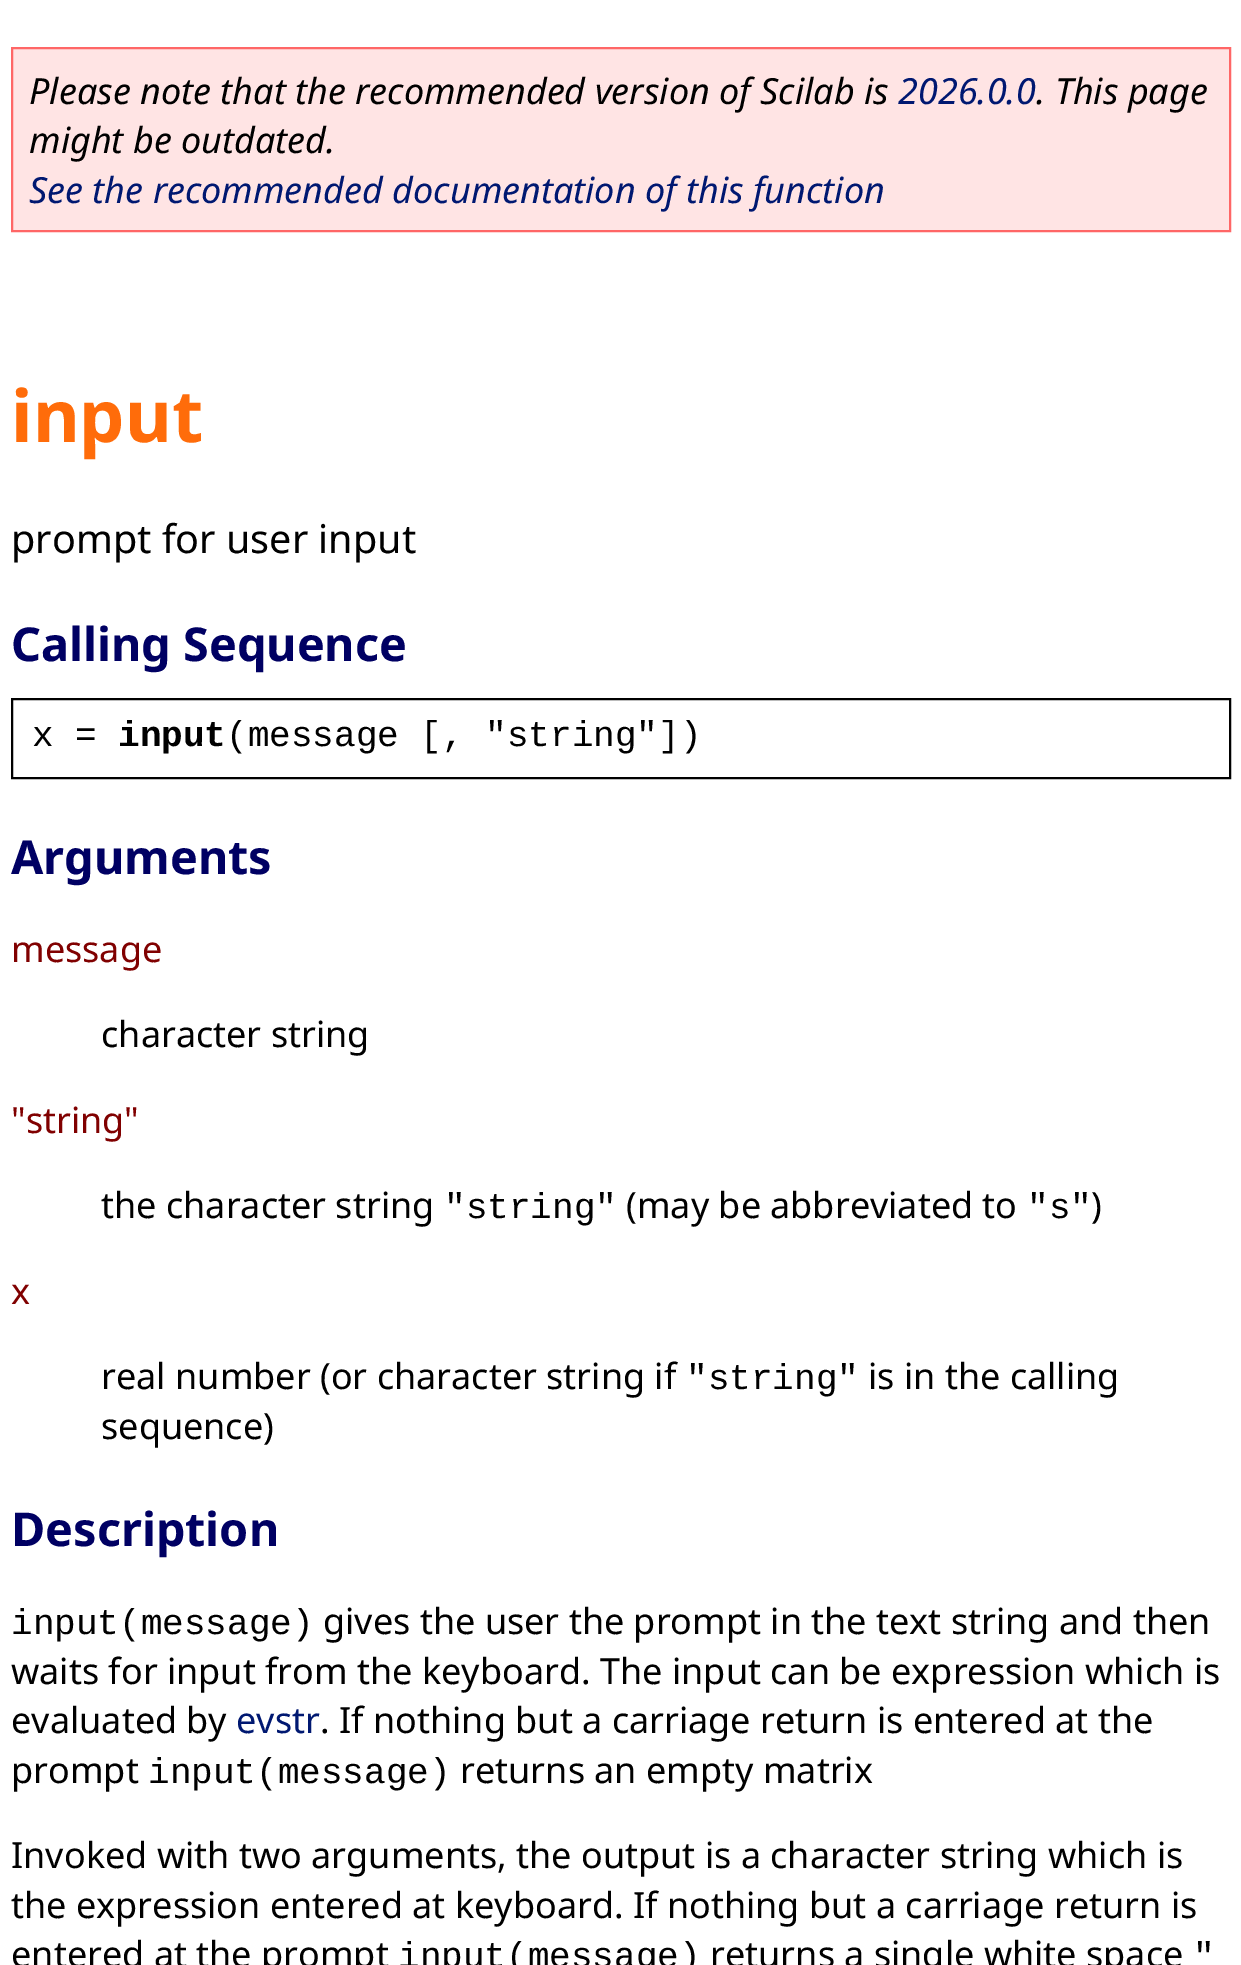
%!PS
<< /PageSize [1241 1965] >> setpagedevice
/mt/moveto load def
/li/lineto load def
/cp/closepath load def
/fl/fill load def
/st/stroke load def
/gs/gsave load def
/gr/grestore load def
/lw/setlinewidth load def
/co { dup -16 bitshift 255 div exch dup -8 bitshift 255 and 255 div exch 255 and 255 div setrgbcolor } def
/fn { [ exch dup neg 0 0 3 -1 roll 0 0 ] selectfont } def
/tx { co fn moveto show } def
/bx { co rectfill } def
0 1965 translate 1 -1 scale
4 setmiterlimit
0 0 1241 1965 16#FFFFFF bx
16#FFE4E4 co
12 48 mt 1230 48 li 1230 231 li 12 231 li cp gs fl gr
16#FF6666 co
2 lw
st
16#000000 co
12 699 1218 79 rectstroke
(Please note that the recommended version of Scilab is) 29 104 /NotoSans-Italic 36 16#000000 tx
(2026.0.0) 898 104 /NotoSans-Italic 36 16#001871 tx
(. This page) 1036 104 /NotoSans-Italic 36 16#000000 tx
(might be outdated.) 29 153 /NotoSans-Italic 36 16#000000 tx
(See the recommended documentation of this function) 29 203 /NotoSans-Italic 36 16#001871 tx
(input) 11 442 /NotoSans-Bold 72 16#FF6C0A tx
(prompt for user input) 11 553 /NotoSans-Regular 39.6 16#000000 tx
(Calling Sequence) 11 661 /NotoSans-Bold 46.75 16#000063 tx
(x =) 32 746 /LiberationMono-Regular 36 16#000000 tx
(input) 118 746 /LiberationMono-Bold 36 16#000000 tx
(\(message [, "string"]\)) 226 746 /LiberationMono-Regular 36 16#000000 tx
(Arguments) 11 874 /NotoSans-Bold 46.75 16#000063 tx
(message) 11 962 /NotoSans-Regular 36 16#800000 tx
(character string) 101 1047 /NotoSans-Regular 36 16#000000 tx
("string") 11 1133 /NotoSans-Regular 36 16#800000 tx
(the character string) 101 1218 /NotoSans-Regular 36 16#000000 tx
("string") 444 1218 /LiberationMono-Regular 36 16#000000 tx
(\(may be abbreviated to) 626 1218 /NotoSans-Regular 36 16#000000 tx
("s") 1027 1218 /LiberationMono-Regular 36 16#000000 tx
(\)) 1091 1218 /NotoSans-Regular 36 16#000000 tx
(x) 11 1304 /NotoSans-Regular 36 16#800000 tx
(real number \(or character string if) 101 1389 /NotoSans-Regular 36 16#000000 tx
("string") 686 1389 /LiberationMono-Regular 36 16#000000 tx
(is in the calling) 868 1389 /NotoSans-Regular 36 16#000000 tx
(sequence\)) 101 1439 /NotoSans-Regular 36 16#000000 tx
(Description) 11 1546 /NotoSans-Bold 46.75 16#000063 tx
(input\(message\)) 11 1634 /LiberationMono-Regular 36 16#000000 tx
(gives the user the prompt in the text string and then) 323 1634 /NotoSans-Regular 36 16#000000 tx
(waits for input from the keyboard. The input can be expression which is) 11 1684 /NotoSans-Regular 36 16#000000 tx
(evaluated by) 11 1733 /NotoSans-Regular 36 16#000000 tx
(evstr) 236 1733 /NotoSans-Regular 36 16#001871 tx
(. If nothing but a carriage return is entered at the) 320 1733 /NotoSans-Regular 36 16#000000 tx
(prompt) 11 1783 /NotoSans-Regular 36 16#000000 tx
(input\(message\)) 148 1783 /LiberationMono-Regular 36 16#000000 tx
(returns an empty matrix) 460 1783 /NotoSans-Regular 36 16#000000 tx
(Invoked with two arguments, the output is a character string which is) 11 1868 /NotoSans-Regular 36 16#000000 tx
(the expression entered at keyboard. If nothing but a carriage return is) 11 1918 /NotoSans-Regular 36 16#000000 tx
(entered at the prompt) 11 1967 /NotoSans-Regular 36 16#000000 tx
(input\(message\)) 398 1967 /LiberationMono-Regular 36 16#000000 tx
(returns a single white space) 710 1967 /NotoSans-Regular 36 16#000000 tx
(") 1193 1967 /LiberationMono-Regular 36 16#000000 tx
showpage
